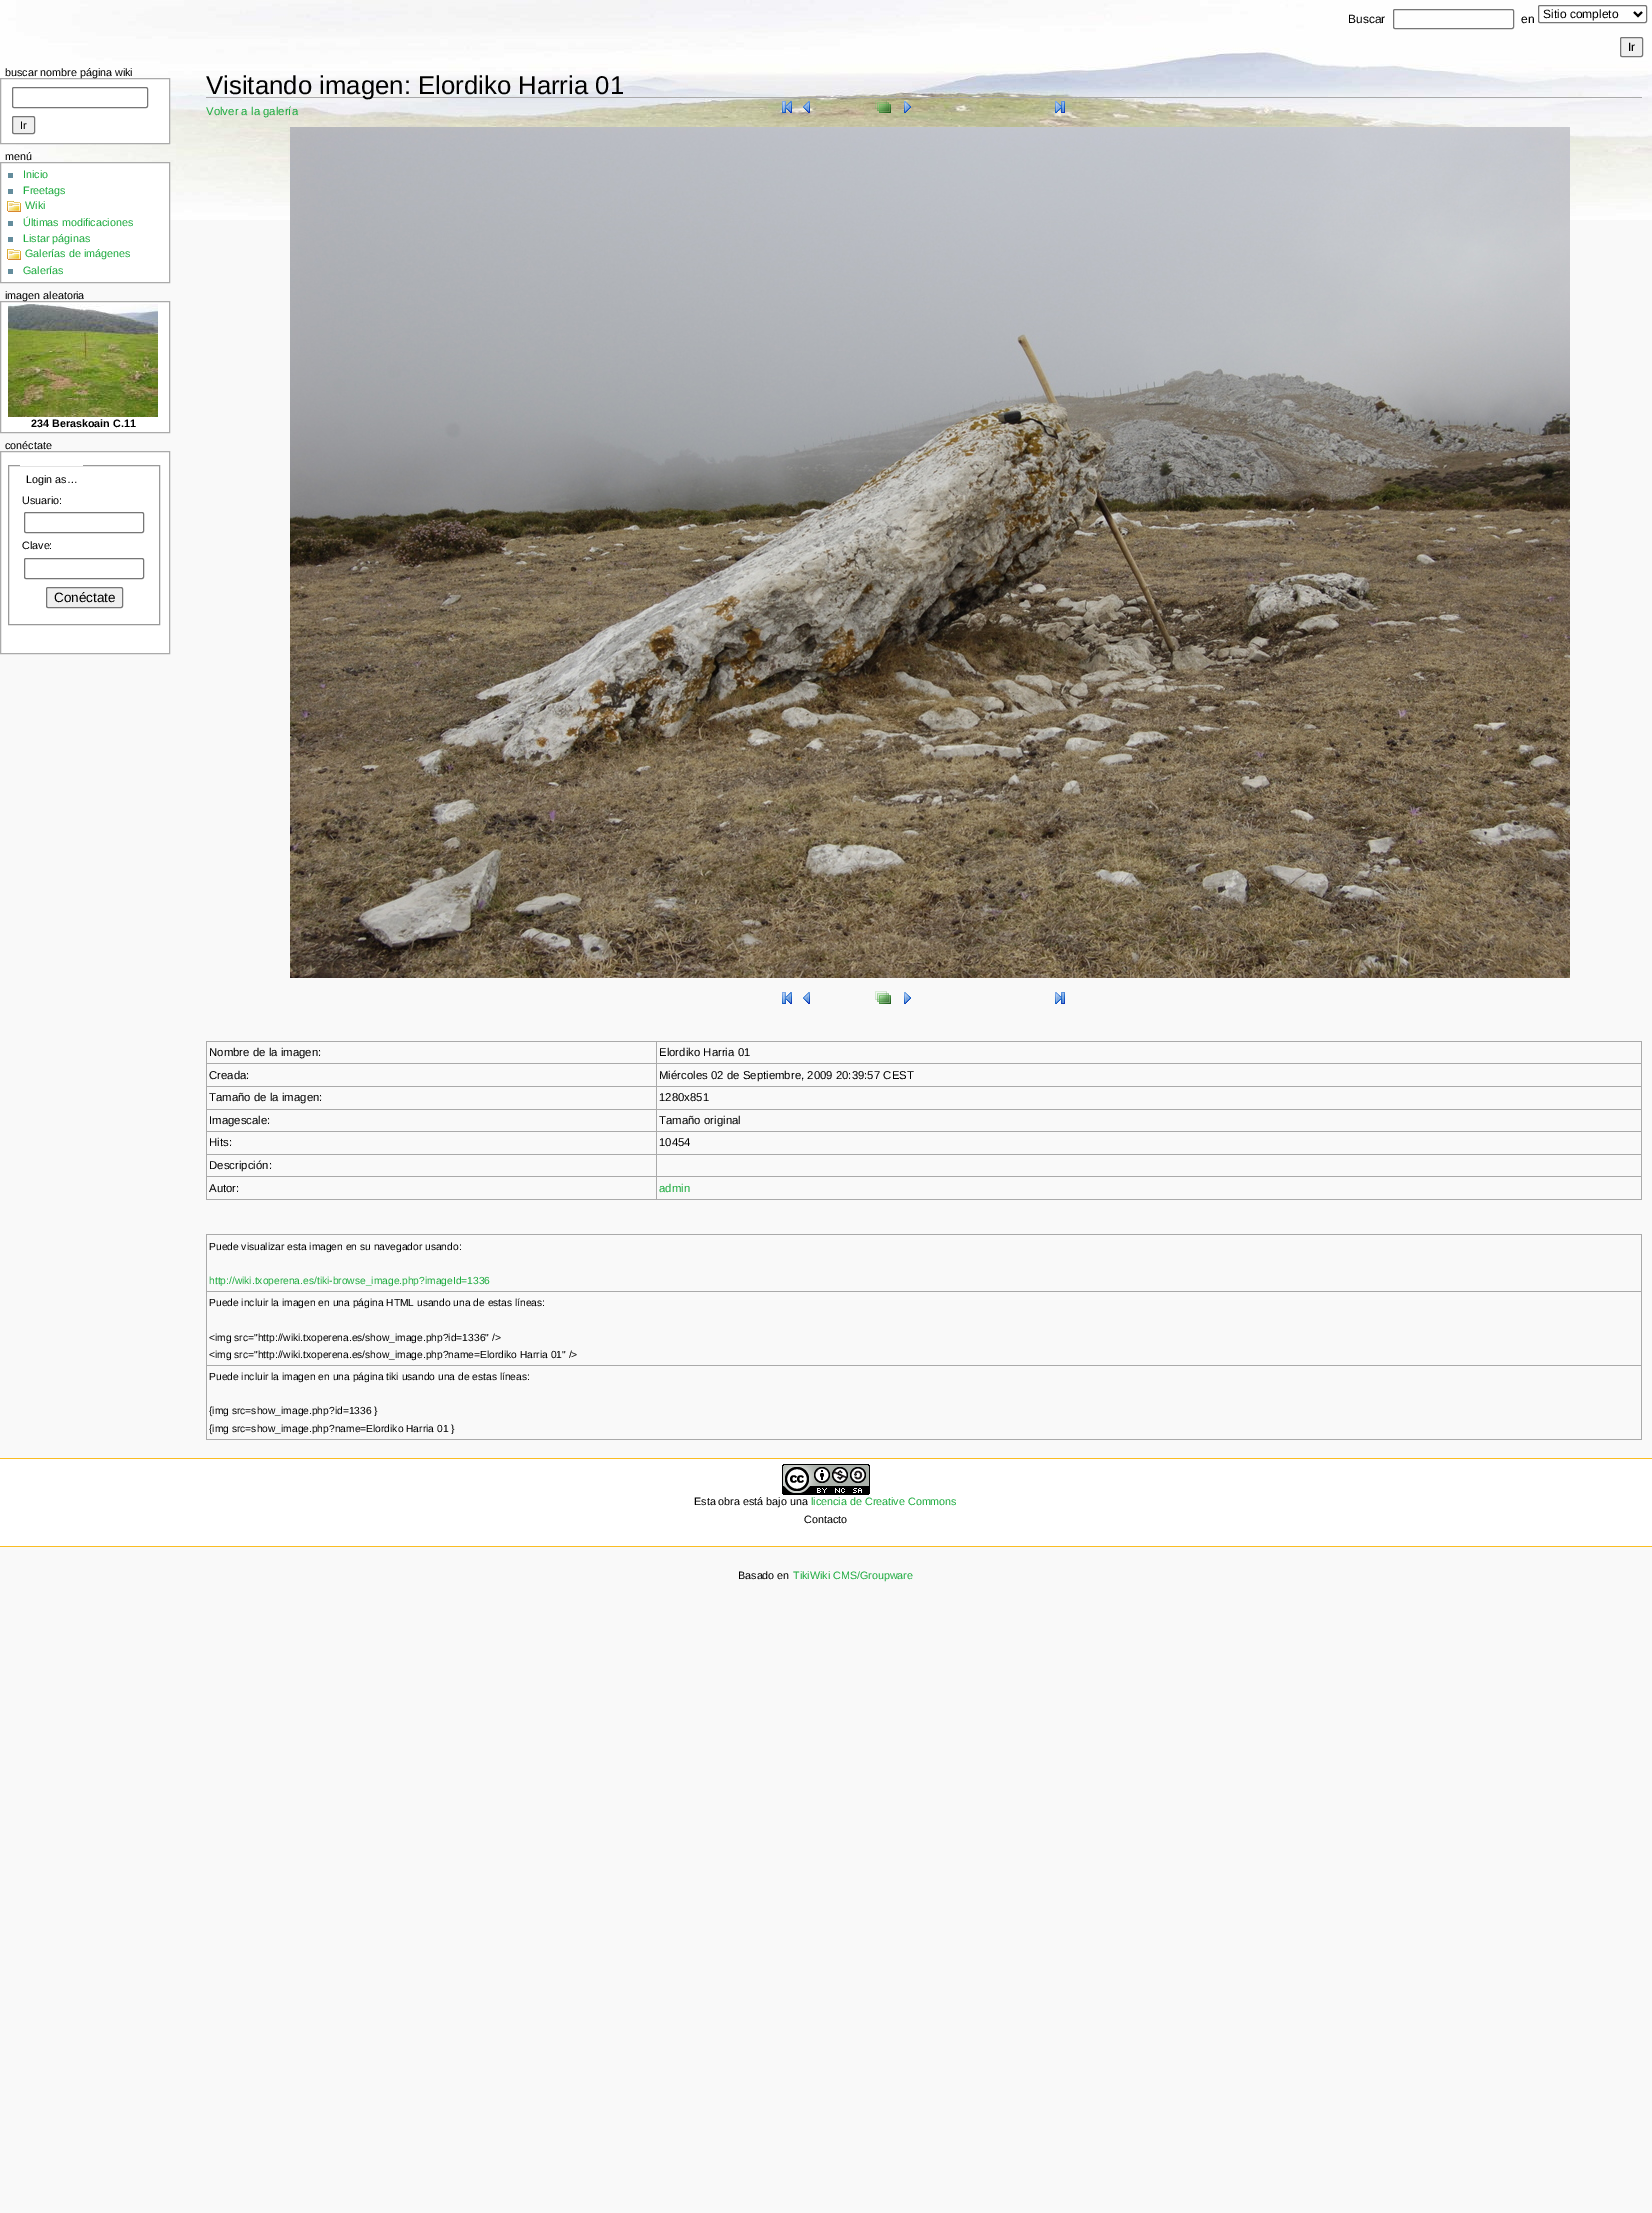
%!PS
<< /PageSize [1652 2213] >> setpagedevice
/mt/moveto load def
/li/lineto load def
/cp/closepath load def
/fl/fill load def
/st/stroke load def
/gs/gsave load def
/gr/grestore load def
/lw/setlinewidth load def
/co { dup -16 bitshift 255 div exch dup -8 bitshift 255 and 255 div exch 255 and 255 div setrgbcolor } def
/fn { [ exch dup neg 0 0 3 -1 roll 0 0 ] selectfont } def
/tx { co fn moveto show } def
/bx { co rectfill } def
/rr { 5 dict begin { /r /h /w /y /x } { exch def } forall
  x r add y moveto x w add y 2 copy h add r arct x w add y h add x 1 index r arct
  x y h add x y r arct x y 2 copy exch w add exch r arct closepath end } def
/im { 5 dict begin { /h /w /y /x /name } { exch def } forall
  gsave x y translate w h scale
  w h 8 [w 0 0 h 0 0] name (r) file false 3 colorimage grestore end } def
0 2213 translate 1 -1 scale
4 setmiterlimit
0 0 1652 2213 16#F9F9F9 bx
(media/1.raw) 0 0 1652 220 im
16#767676 co
1393.5 9.5 120 19 1.5 rr st
1538.5 5.5 108 17 1.5 rr st
16#000000 co
2 lw
1634 12 mt 1638 16 li 1642 12 li st
16#EFEFEF co
1620.5 37.5 22 19 1.5 rr gs fl gr
16#767676 co
1 lw
st
16#FFFFFF co
.5 78.5 mt 169.5 78.5 li 169.5 143.5 li .5 143.5 li cp gs fl gr
16#AAAAAA co
st
16#767676 co
12.5 87.5 135 20 1.5 rr st
16#EFEFEF co
12.5 116.5 22 17 1.5 rr gs fl gr
16#767676 co
st
16#FFFFFF co
.5 162.5 mt 169.5 162.5 li 169.5 282.5 li .5 282.5 li cp gs fl gr
16#AAAAAA co
st
8 173 5 5 16#638C9C bx
8 189 5 5 16#638C9C bx
(media/2.raw) 7 201 14 11 im
8 221 5 5 16#638C9C bx
8 237 5 5 16#638C9C bx
(media/2.raw) 7 249 14 11 im
8 269 5 5 16#638C9C bx
16#FFFFFF co
.5 301.5 mt 169.5 301.5 li 169.5 432.5 li .5 432.5 li cp gs fl gr
16#AAAAAA co
st
(media/3.raw) 8 304 150 113 im
16#FFFFFF co
.5 451.5 mt 169.5 451.5 li 169.5 653.5 li .5 653.5 li cp gs fl gr
16#AAAAAA co
st
16#999999 co
8.5 465.5 151 159 rectstroke
20 465 63 1 16#FFFFFF bx
16#767676 co
24.5 512.5 119 20 1.5 rr st
24.5 558.5 119 20 1.5 rr st
16#EFEFEF co
46.5 587.5 76 20 1.5 rr gs fl gr
16#767676 co
st
206 97 1436 1 16#AAAAAA bx
(media/4.raw) 782 101 10 12 im
(media/5.raw) 803 101 7 12 im
(media/6.raw) 875 100 16 13 im
(media/7.raw) 904 101 7 12 im
(media/8.raw) 1055 101 10 12 im
(media/9.raw) 290 127 1280 851 im
(media/10.raw) 782 992 10 12 im
(media/11.raw) 803 992 7 12 im
(media/12.raw) 875 991 16 13 im
(media/13.raw) 904 992 7 12 im
(media/14.raw) 1055 992 10 12 im
206 1041 1436 1 16#AAAAAA bx
1641 1041 1 159 16#AAAAAA bx
206 1199 1436 1 16#AAAAAA bx
206 1041 1 159 16#AAAAAA bx
656 1063 986 1 16#AAAAAA bx
656 1086 986 1 16#AAAAAA bx
656 1109 986 1 16#AAAAAA bx
656 1131 986 1 16#AAAAAA bx
656 1154 986 1 16#AAAAAA bx
656 1176 986 1 16#AAAAAA bx
656 1176 1 24 16#AAAAAA bx
206 1176 451 1 16#AAAAAA bx
656 1154 1 23 16#AAAAAA bx
206 1154 451 1 16#AAAAAA bx
656 1131 1 24 16#AAAAAA bx
206 1131 451 1 16#AAAAAA bx
656 1109 1 23 16#AAAAAA bx
206 1109 451 1 16#AAAAAA bx
656 1086 1 24 16#AAAAAA bx
206 1086 451 1 16#AAAAAA bx
656 1063 1 24 16#AAAAAA bx
206 1063 451 1 16#AAAAAA bx
656 1041 1 23 16#AAAAAA bx
206 1234 1436 1 16#AAAAAA bx
1641 1234 1 206 16#AAAAAA bx
206 1439 1436 1 16#AAAAAA bx
206 1234 1 206 16#AAAAAA bx
206 1291 1436 1 16#AAAAAA bx
206 1365 1436 1 16#AAAAAA bx
0 1459 1652 87 16#FFFFFF bx
0 1458 1652 1 16#FABD23 bx
0 1546 1652 1 16#FABD23 bx
(media/15.raw) 782 1464 88 31 im
(Buscar) 1348 23 /LiberationSans-Regular 12 16#000000 tx
(en) 1521 23 /LiberationSans-Regular 12 16#000000 tx
(Sitio completo) 1543 18 /LiberationSans-Regular 12 16#000000 tx
(Ir) 1628 51 /LiberationSans-Regular 12 16#000000 tx
(buscar nombre página wiki) 5 76 /LiberationSans-Regular 10.75 16#000000 tx
(Ir) 20 129 /LiberationSans-Regular 10.75 16#000000 tx
(menú) 5 160 /LiberationSans-Regular 10.75 16#000000 tx
(Inicio) 23 178 /LiberationSans-Regular 10.75 16#1CAB3E tx
(Freetags) 23 194 /LiberationSans-Regular 10.75 16#1CAB3E tx
(Wiki) 25 209 /LiberationSans-Regular 10.75 16#1CAB3E tx
(Últimas modificaciones) 23 226 /LiberationSans-Regular 10.75 16#1CAB3E tx
(Listar páginas) 23 242 /LiberationSans-Regular 10.75 16#1CAB3E tx
(Galerías de imágenes) 25 257 /LiberationSans-Regular 10.75 16#1CAB3E tx
(Galerías) 23 274 /LiberationSans-Regular 10.75 16#1CAB3E tx
(imagen aleatoria) 5 299 /LiberationSans-Regular 10.75 16#000000 tx
(234 Beraskoain C.11) 31 427 /LiberationSans-Bold 10.75 16#000000 tx
(conéctate) 5 449 /LiberationSans-Regular 10.75 16#000000 tx
(Login as…) 26 483 /LiberationSans-Regular 10.75 16#000000 tx
(Usuario:) 22 504 /LiberationSans-Regular 10.75 16#000000 tx
(Clave:) 22 549 /LiberationSans-Regular 10.75 16#000000 tx
(Conéctate) 54 602 /LiberationSans-Regular 13.5 16#000000 tx
(Visitando imagen: Elordiko Harria 01) 206 94 /LiberationSans-Regular 25.75 16#000000 tx
(Volver a la galería) 206 115 /LiberationSans-Regular 11.4 16#1CAB3E tx
(Nombre de la imagen:) 209 1056 /LiberationSans-Regular 11.4 16#000000 tx
(Elordiko Harria 01) 659 1056 /LiberationSans-Regular 11.4 16#000000 tx
(Creada:) 209 1079 /LiberationSans-Regular 11.4 16#000000 tx
(Miércoles 02 de Septiembre, 2009 20:39:57 CEST) 659 1079 /LiberationSans-Regular 11.4 16#000000 tx
(Tamaño de la imagen:) 209 1101 /LiberationSans-Regular 11.4 16#000000 tx
(1280x851) 659 1101 /LiberationSans-Regular 11.4 16#000000 tx
(Imagescale:) 209 1124 /LiberationSans-Regular 11.4 16#000000 tx
(Tamaño original) 659 1124 /LiberationSans-Regular 11.4 16#000000 tx
(Hits:) 209 1146 /LiberationSans-Regular 11.4 16#000000 tx
(10454) 659 1146 /LiberationSans-Regular 11.4 16#000000 tx
(Descripción:) 209 1169 /LiberationSans-Regular 11.4 16#000000 tx
(Autor:) 209 1192 /LiberationSans-Regular 11.4 16#000000 tx
(admin) 659 1192 /LiberationSans-Regular 11.4 16#1CAB3E tx
(Puede visualizar esta imagen en su navegador usando:) 209 1250 /LiberationSans-Regular 10.25 16#000000 tx
(http://wiki.txoperena.es/tiki-browse_image.php?imageId=1336) 209 1284 /LiberationSans-Regular 10.25 16#1CAB3E tx
(Puede incluir la imagen en una página HTML usando una de estas líneas:) 209 1306 /LiberationSans-Regular 10.25 16#000000 tx
(<img src="http://wiki.txoperena.es/show_image.php?id=1336" />) 209 1341 /LiberationSans-Regular 10.25 16#000000 tx
(<img src="http://wiki.txoperena.es/show_image.php?name=Elordiko Harria 01" />) 209 1358 /LiberationSans-Regular 10.25 16#000000 tx
(Puede incluir la imagen en una página tiki usando una de estas líneas:) 209 1380 /LiberationSans-Regular 10.25 16#000000 tx
({img src=show_image.php?id=1336 }) 209 1414 /LiberationSans-Regular 10.25 16#000000 tx
({img src=show_image.php?name=Elordiko Harria 01 }) 209 1432 /LiberationSans-Regular 10.25 16#000000 tx
(Esta obra está bajo una) 694 1505 /LiberationSans-Regular 10.75 16#000000 tx
(licencia de Creative Commons) 811 1505 /LiberationSans-Regular 10.75 16#1CAB3E tx
(Contacto) 804 1523 /LiberationSans-Regular 10.75 16#000000 tx
(Basado en) 738 1579 /LiberationSans-Regular 10.75 16#000000 tx
(TikiWiki CMS/Groupware) 793 1579 /LiberationSans-Regular 10.75 16#1CAB3E tx
showpage
